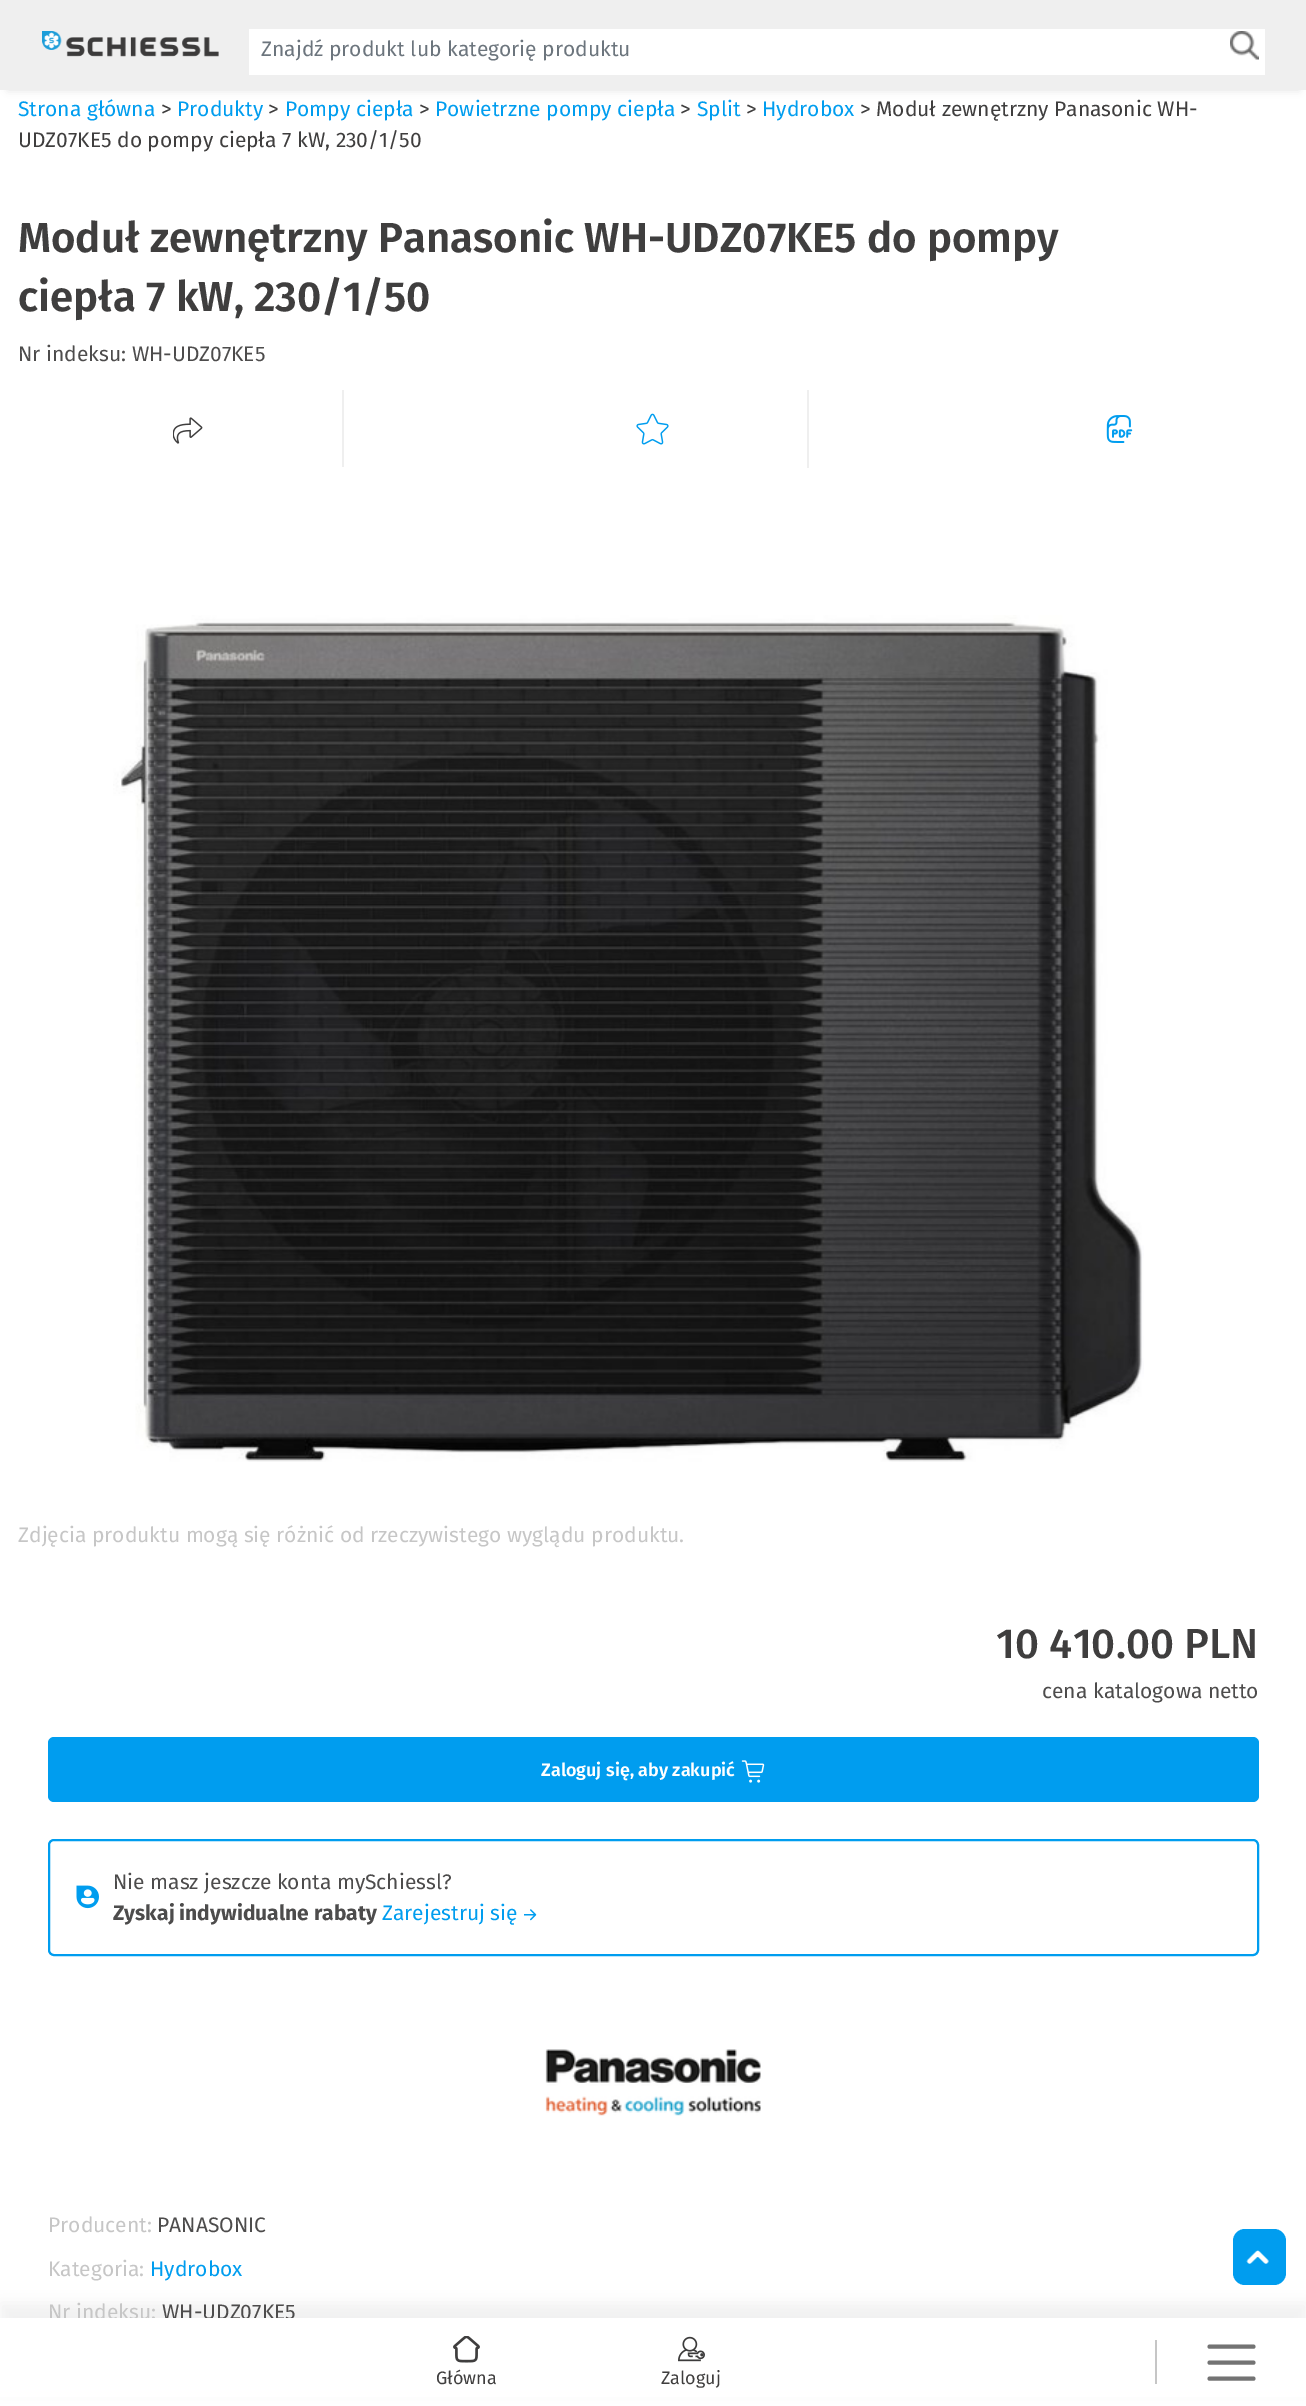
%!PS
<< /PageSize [1306 2406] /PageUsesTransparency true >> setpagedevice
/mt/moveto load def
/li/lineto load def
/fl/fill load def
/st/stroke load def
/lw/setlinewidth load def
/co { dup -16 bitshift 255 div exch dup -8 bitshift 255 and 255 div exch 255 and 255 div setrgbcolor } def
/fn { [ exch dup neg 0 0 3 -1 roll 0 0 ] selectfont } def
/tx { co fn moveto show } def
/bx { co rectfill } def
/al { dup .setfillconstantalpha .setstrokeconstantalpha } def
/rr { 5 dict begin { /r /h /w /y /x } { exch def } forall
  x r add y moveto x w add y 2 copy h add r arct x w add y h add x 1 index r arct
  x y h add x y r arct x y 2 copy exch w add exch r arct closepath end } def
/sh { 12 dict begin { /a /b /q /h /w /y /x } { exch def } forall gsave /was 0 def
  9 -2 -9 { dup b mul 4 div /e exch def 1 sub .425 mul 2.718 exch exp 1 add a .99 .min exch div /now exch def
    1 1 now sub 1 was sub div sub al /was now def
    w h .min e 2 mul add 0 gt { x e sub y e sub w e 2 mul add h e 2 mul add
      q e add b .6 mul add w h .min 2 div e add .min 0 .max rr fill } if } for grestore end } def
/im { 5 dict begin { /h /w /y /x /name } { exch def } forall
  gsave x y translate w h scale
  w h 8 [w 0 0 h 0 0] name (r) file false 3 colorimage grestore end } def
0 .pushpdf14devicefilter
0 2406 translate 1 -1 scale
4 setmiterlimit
0 0 1306 2406 16#FFFFFF bx
16#42445A co
8 15 1291 75 0 4 .17 sh
0 0 1306 90 16#EFEFEF bx
(media/1.raw) 42 31 177 26 im
249 29 1016 46 16#FFFFFF bx
(media/2.raw) 1230 31 29 29 im
342 390 2 77 16#EFEFEF bx
(media/3.raw) 173 417 30 27 im
807 390 2 78 16#EFEFEF bx
(media/4.raw) 636 413 33 32 im
(media/5.raw) 1106 415 27 28 im
(media/6.raw) 113 615 1031 847 im
16#009DEF co
48 1737 1211 65 6 rr fl
(media/7.raw) 741 1760 24 23 im
2 lw
49 1840 1209 115 5 rr st
(media/8.raw) 76 1885 23 24 im
(media/9.raw) 524 1909 13 12 im
(media/10.raw) 545 2049 216 67 im
1233 2229 53 56 12 rr fl
(media/11.raw) 1246 2250 23 14 im
16#000000 co
0 2303 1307 88 0 7.5 .05 sh
(Znajdź produkt lub kategorię produktu) 261 56 /FiraSans-Regular 21 16#6C757D tx
(Strona główna) 18 116 /FiraSans-Regular 21 16#009DEF tx
(>) 161 116 /FiraSans-Regular 21 16#3F3E3E tx
(Produkty) 177 116 /FiraSans-Regular 21 16#009DEF tx
(>) 268 116 /FiraSans-Regular 21 16#3F3E3E tx
(Pompy ciepła) 285 116 /FiraSans-Regular 21 16#009DEF tx
(>) 419 116 /FiraSans-Regular 21 16#3F3E3E tx
(Powietrzne pompy ciepła) 435 116 /FiraSans-Regular 21 16#009DEF tx
(>) 680 116 /FiraSans-Regular 21 16#3F3E3E tx
(Split) 697 116 /FiraSans-Regular 21 16#009DEF tx
(>) 746 116 /FiraSans-Regular 21 16#3F3E3E tx
(Hydrobox) 762 116 /FiraSans-Regular 21 16#009DEF tx
(> Moduł zewnętrzny Panasonic WH-) 860 116 /FiraSans-Regular 21 16#3F3E3E tx
(UDZ07KE5 do pompy ciepła 7 kW, 230/1/50) 18 147 /FiraSans-Regular 21 16#3F3E3E tx
(Moduł zewnętrzny Panasonic WH-UDZ07KE5 do pompy) 18 252 /FiraSans-SemiBold 42 16#3F3E3E tx
(ciepła 7 kW, 230/1/50) 18 311 /FiraSans-SemiBold 42 16#3F3E3E tx
(Nr indeksu: WH-UDZ07KE5) 18 361 /FiraSans-Regular 21 16#4D4C4C tx
(Zdjęcia produktu mogą się różnić od rzeczywistego wyglądu produktu.) 18 1542 /FiraSans-Regular 21 16#C6C6C6 tx
(10 410.00 PLN) 996 1658 /FiraSans-Medium 42 16#3F3E3E tx
(cena katalogowa netto) 1042 1698 /FiraSans-Regular 21 16#4D4C4C tx
(Zaloguj się, aby zakupić) 541 1776 /FiraSans-SemiBold 18 16#FFFFFF tx
(Nie masz jeszcze konta mySchiessl?) 113 1889 /FiraSans-Regular 21 16#4D4C4C tx
(Zyskaj indywidualne rabaty) 113 1920 /FiraSans-Bold 21 16#4D4C4C tx
(Zarejestruj się) 382 1920 /FiraSans-Regular 21 16#009DEF tx
(Producent:) 48 2232 /FiraSans-Regular 21 16#C6C6C6 tx
(PANASONIC) 157 2232 /FiraSans-Regular 21 16#4D4C4C tx
(Kategoria:) 48 2276 /FiraSans-Regular 21 16#C6C6C6 tx
(Hydrobox) 150 2276 /FiraSans-Regular 21 16#009DEF tx
(Nr indeksu:) 48 2319 /FiraSans-Regular 21 16#C6C6C6 tx
(WH-UDZ07KE5) 162 2319 /FiraSans-Regular 21 16#4D4C4C tx
0 2318 1306 79 16#FFFFFF bx
(media/12.raw) 453 2336 27 27 im
(Główna) 436 2384 /FiraSans-Regular 18 16#3F3E3E tx
(media/13.raw) 678 2336 27 26 im
(Zaloguj) 661 2384 /FiraSans-Regular 18 16#3F3E3E tx
1155 2340 2 44 16#C6C6C6 bx
16#737373 co
4 lw
1 setlinecap
1209.5 2346.5 mt 1253.5 2346.5 li 1209.5 2362.5 mt 1253.5 2362.5 li 1209.5 2378.5 mt 1253.5 2378.5 li st
.poppdf14devicefilter showpage
